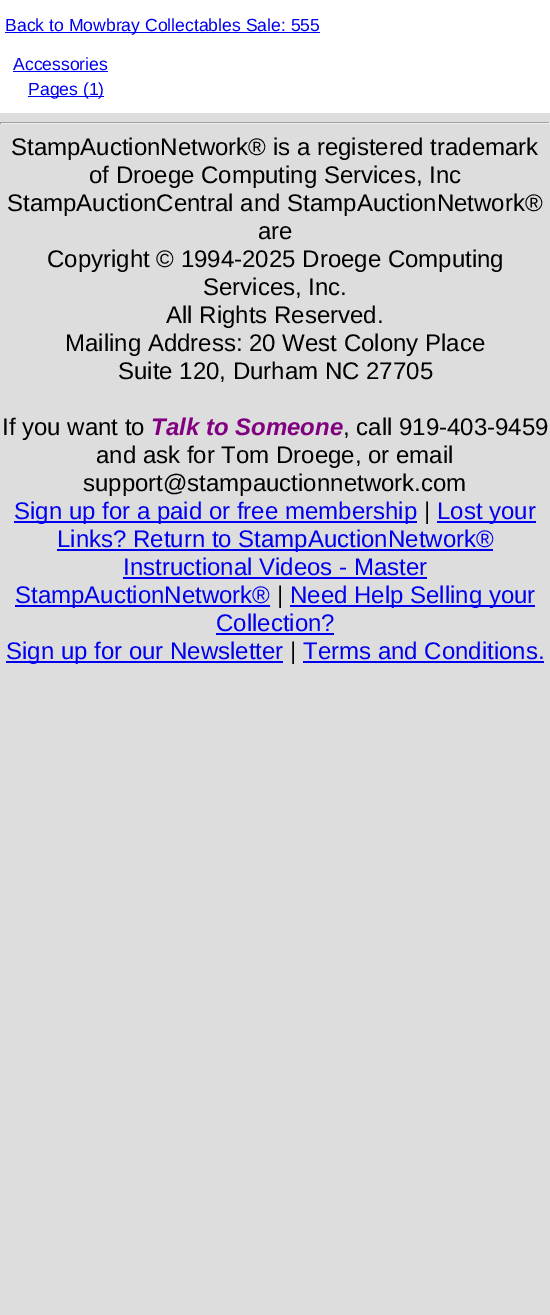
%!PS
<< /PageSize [550 1315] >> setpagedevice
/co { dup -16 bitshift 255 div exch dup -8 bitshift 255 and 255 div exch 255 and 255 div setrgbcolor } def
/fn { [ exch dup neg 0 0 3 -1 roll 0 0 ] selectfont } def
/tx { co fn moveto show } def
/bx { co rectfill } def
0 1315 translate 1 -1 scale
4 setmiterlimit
0 0 550 1315 16#DDDDDD bx
0 0 550 113 16#FFFFFF bx
5 32 315 1 16#0000EE bx
13 71 95 1 16#0000EE bx
28 96 76 1 16#0000EE bx
0 122 550 1 16#9F9F9F bx
549 122 1 2 16#EEEEEE bx
0 123 550 1 16#EEEEEE bx
0 122 1 2 16#9F9F9F bx
14 521 403 2 16#0000EE bx
437 521 99 2 16#0000EE bx
57 549 436 2 16#0000EE bx
123 577 304 2 16#0000EE bx
15 605 255 2 16#0000EE bx
290 605 245 2 16#0000EE bx
216 633 118 2 16#0000EE bx
6 661 277 2 16#0000EE bx
303 661 241 2 16#0000EE bx
(Back to Mowbray Collectables Sale: 555) 5 31 /LiberationSans-Regular 17.6 16#0000EE tx
(Accessories) 13 70 /LiberationSans-Regular 17.6 16#0000EE tx
(Pages \(1\)) 28 95 /LiberationSans-Regular 17.6 16#0000EE tx
(StampAuctionNetwork® is a registered trademark) 11 155 /LiberationSans-Regular 24 16#000000 tx
(of Droege Computing Services, Inc) 89 183 /LiberationSans-Regular 24 16#000000 tx
(StampAuctionCentral and StampAuctionNetwork®) 7 211 /LiberationSans-Regular 24 16#000000 tx
(are) 258 239 /LiberationSans-Regular 24 16#000000 tx
(Copyright © 1994-2025 Droege Computing) 47 267 /LiberationSans-Regular 24 16#000000 tx
(Services, Inc.) 203 295 /LiberationSans-Regular 24 16#000000 tx
(All Rights Reserved.) 166 323 /LiberationSans-Regular 24 16#000000 tx
(Mailing Address: 20 West Colony Place) 65 351 /LiberationSans-Regular 24 16#000000 tx
(Suite 120, Durham NC 27705) 118 379 /LiberationSans-Regular 24 16#000000 tx
(If you want to) 2 435 /LiberationSans-Regular 24 16#000000 tx
(Talk to Someone) 151 435 /LiberationSans-BoldItalic 24 16#800080 tx
(, call 919-403-9459) 343 435 /LiberationSans-Regular 24 16#000000 tx
(and ask for Tom Droege, or email) 96 463 /LiberationSans-Regular 24 16#000000 tx
(support@stampauctionnetwork.com) 83 491 /LiberationSans-Regular 24 16#000000 tx
(Sign up for a paid or free membership) 14 519 /LiberationSans-Regular 24 16#0000EE tx
(|) 424 519 /LiberationSans-Regular 24 16#000000 tx
(Lost your) 437 519 /LiberationSans-Regular 24 16#0000EE tx
(Links? Return to StampAuctionNetwork®) 57 547 /LiberationSans-Regular 24 16#0000EE tx
(Instructional Videos - Master) 123 575 /LiberationSans-Regular 24 16#0000EE tx
(StampAuctionNetwork®) 15 603 /LiberationSans-Regular 24 16#0000EE tx
(|) 277 603 /LiberationSans-Regular 24 16#000000 tx
(Need Help Selling your) 290 603 /LiberationSans-Regular 24 16#0000EE tx
(Collection?) 216 631 /LiberationSans-Regular 24 16#0000EE tx
(Sign up for our Newsletter) 6 659 /LiberationSans-Regular 24 16#0000EE tx
(|) 290 659 /LiberationSans-Regular 24 16#000000 tx
(Terms and Conditions.) 303 659 /LiberationSans-Regular 24 16#0000EE tx
showpage
